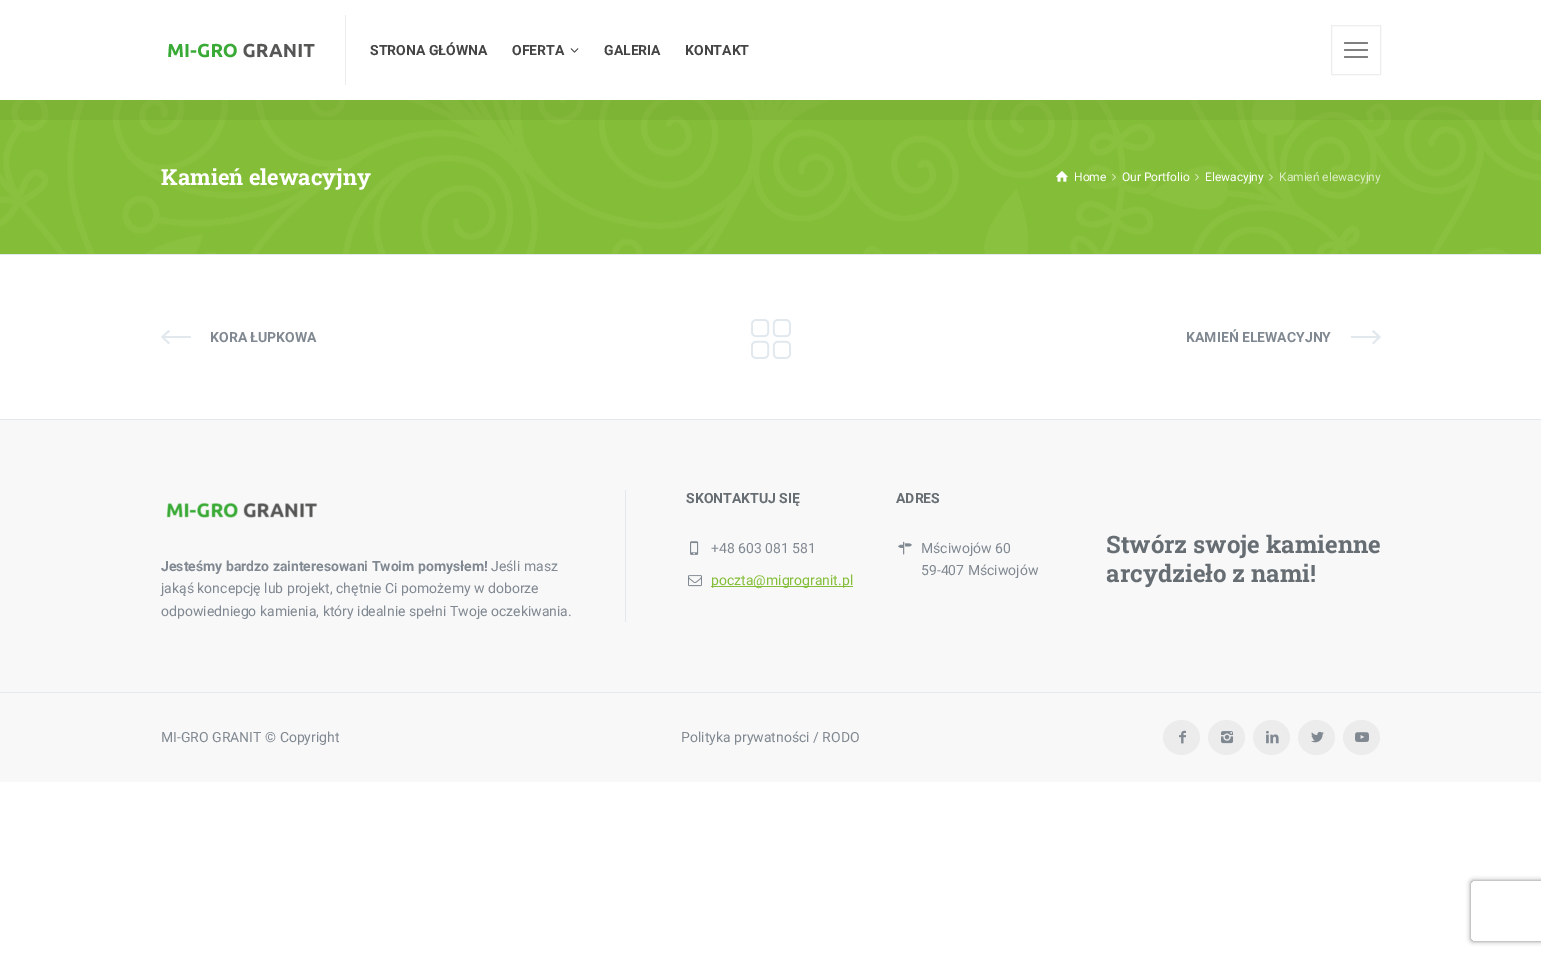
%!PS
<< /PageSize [1541 955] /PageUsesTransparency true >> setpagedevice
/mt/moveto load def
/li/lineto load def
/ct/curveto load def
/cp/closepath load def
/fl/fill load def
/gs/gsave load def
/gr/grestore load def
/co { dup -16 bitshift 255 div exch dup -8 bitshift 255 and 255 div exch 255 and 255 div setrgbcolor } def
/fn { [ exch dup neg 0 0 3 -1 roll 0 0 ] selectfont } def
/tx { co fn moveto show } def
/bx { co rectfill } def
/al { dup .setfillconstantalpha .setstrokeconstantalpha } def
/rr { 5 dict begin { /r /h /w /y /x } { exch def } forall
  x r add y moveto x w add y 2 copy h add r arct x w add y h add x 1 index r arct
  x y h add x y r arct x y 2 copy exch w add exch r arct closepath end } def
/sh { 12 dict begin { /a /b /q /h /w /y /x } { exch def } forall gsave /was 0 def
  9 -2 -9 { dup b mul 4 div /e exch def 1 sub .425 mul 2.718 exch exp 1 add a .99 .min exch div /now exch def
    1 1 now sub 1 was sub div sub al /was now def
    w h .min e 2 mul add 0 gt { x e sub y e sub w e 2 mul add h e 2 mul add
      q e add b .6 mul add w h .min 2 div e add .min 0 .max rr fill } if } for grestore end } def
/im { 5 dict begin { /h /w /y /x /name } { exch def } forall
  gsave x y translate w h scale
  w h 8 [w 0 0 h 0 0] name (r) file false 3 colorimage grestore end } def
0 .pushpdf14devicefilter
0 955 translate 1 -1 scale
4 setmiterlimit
0 0 1541 955 16#FFFFFF bx
345 15 1 70 16#EDEDED bx
(media/1.raw) 168 43 147 15 im
(media/2.raw) 570 48 9 5 im
1331.5 25.5 49 49 rectstroke
16#808080 co
1344 42 24 2 1 rr fl
1344 49 24 2 1 rr fl
1344 56 24 2 1 rr fl
(media/3.raw) 0 100 1541 154 im
0.05 al
0 100 1541 20 16#000000 bx
1 al
(media/4.raw) 1056 171 12 11 im
(media/5.raw) 1112 174 4 7 im
(media/6.raw) 1195 174 4 7 im
(media/7.raw) 1269 174 4 7 im
0 254 1541 1 16#E1E8EE bx
164.5 336 mt 170 331.5 li 168.5 330 li 161 337 li 168.5 344 li 170 343 li 164.5 338 li 191 338 li 191 336 li cp fl
(media/8.raw) 751 319 40 40 im
1377 336 mt 1372 331.5 li 1373.5 330 li 1381 337 li 1373.5 344 li 1372 343 li 1377 338 li 1351 338 li 1351 336 li cp fl
0 420 1541 362 16#F8F8F8 bx
0 419 1541 1 16#E1E8EE bx
625 490 1 132 16#E1E8EE bx
(media/9.raw) 166 502 152 16 im
(media/10.raw) 690 541 9 14 im
(media/11.raw) 688 575 14 12 im
711 586 142 1 16#84BE38 bx
(media/12.raw) 898 541 14 14 im
0 692 1541 1 16#E1E8EE bx
16#ECECEC co
1181.5 720 mt 1191.5 720 1200 728 1200 737.5 ct 1200 747 1191.5 755 1181.5 755 ct 1171.5 755 1163 747 1163 737.5 ct 1163 728 1171.5 720 1181.5 720 ct cp fl
(media/13.raw) 1179 730 7 14 im
1226.5 720 mt 1236.5 720 1245 728 1245 737.5 ct 1245 747 1236.5 755 1226.5 755 ct 1216.5 755 1208 747 1208 737.5 ct 1208 728 1216.5 720 1226.5 720 ct cp fl
(media/14.raw) 1221 731 13 13 im
1271.5 720 mt 1281.5 720 1290 728 1290 737.5 ct 1290 747 1281.5 755 1271.5 755 ct 1261.5 755 1253 747 1253 737.5 ct 1253 728 1261.5 720 1271.5 720 ct cp fl
(media/15.raw) 1266 730 13 14 im
1316.5 720 mt 1326.5 720 1335 728 1335 737.5 ct 1335 747 1326.5 755 1316.5 755 ct 1306.5 755 1298 747 1298 737.5 ct 1298 728 1306.5 720 1316.5 720 ct cp fl
(media/16.raw) 1311 731 13 12 im
1361.5 720 mt 1371.5 720 1380 728 1380 737.5 ct 1380 747 1371.5 755 1361.5 755 ct 1351.5 755 1343 747 1343 737.5 ct 1343 728 1351.5 720 1361.5 720 ct cp fl
(media/17.raw) 1355 732 14 10 im
gs
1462 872 mt 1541 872 li 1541 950 li 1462 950 li cp 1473 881 mt 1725 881 li 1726 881 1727 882 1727 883 ct 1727 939 li 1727 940 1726 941 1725 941 ct 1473 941 li 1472 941 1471 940 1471 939 ct 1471 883 li 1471 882 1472 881 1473 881 ct cp eoclip newpath
16#808080 co
1471 881 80 60 2 2.5 1 sh
gr
(STRONA GŁÓWNA) 370 55 /Roboto-Bold 14 16#444444 tx
(OFERTA) 512 55 /Roboto-Bold 14 16#444444 tx
(GALERIA) 604 55 /Roboto-Bold 14 16#444444 tx
(KONTAKT) 685 55 /Roboto-Bold 14 16#444444 tx
(Kamień elewacyjny) 161 185 /RobotoSlab-Bold 22 16#FFFFFF tx
(Home) 1074 181 /Roboto-Regular 12 16#FFFFFF tx
(Our Portfolio) 1122 181 /Roboto-Regular 12 16#FFFFFF tx
(Elewacyjny) 1205 181 /Roboto-Regular 12 16#FFFFFF tx
(Kamień elewacyjny) 1279 181 /Roboto-Regular 12 16#DBECC4 tx
(KORA ŁUPKOWA) 210 342 /Roboto-Bold 14 16#808891 tx
(KAMIEŃ ELEWACYJNY) 1186 342 /Roboto-Bold 14 16#808891 tx
(Jesteśmy bardzo zainteresowani Twoim pomysłem!) 161 571 /Roboto-Bold 14 16#808891 tx
(Jeśli masz) 491 571 /Roboto-Regular 14 16#808891 tx
(jakąś koncepcję lub projekt, chętnie Ci pomożemy w doborze) 161 593 /Roboto-Regular 14 16#808891 tx
(odpowiedniego kamienia, który idealnie spełni Twoje oczekiwania.) 161 616 /Roboto-Regular 14 16#808891 tx
(SKONTAKTUJ SIĘ) 686 503 /Roboto-Bold 14 16#666D73 tx
(+48 603 081 581) 711 553 /Roboto-Regular 14 16#808891 tx
(poczta@migrogranit.pl) 711 585 /Roboto-Regular 14 16#84BE38 tx
(ADRES) 896 503 /Roboto-Bold 14 16#666D73 tx
(Mściwojów 60) 921 553 /Roboto-Regular 14 16#808891 tx
(59-407 Mściwojów) 921 575 /Roboto-Regular 14 16#808891 tx
(Stwórz swoje kamienne) 1106 553 /RobotoSlab-Bold 24 16#666D73 tx
(arcydzieło z nami!) 1106 582 /RobotoSlab-Bold 24 16#666D73 tx
(MI-GRO GRANIT © Copyright) 161 742 /Roboto-Regular 14 16#808891 tx
(Polityka prywatności / RODO) 681 742 /Roboto-Regular 14 16#808891 tx
.poppdf14devicefilter showpage
